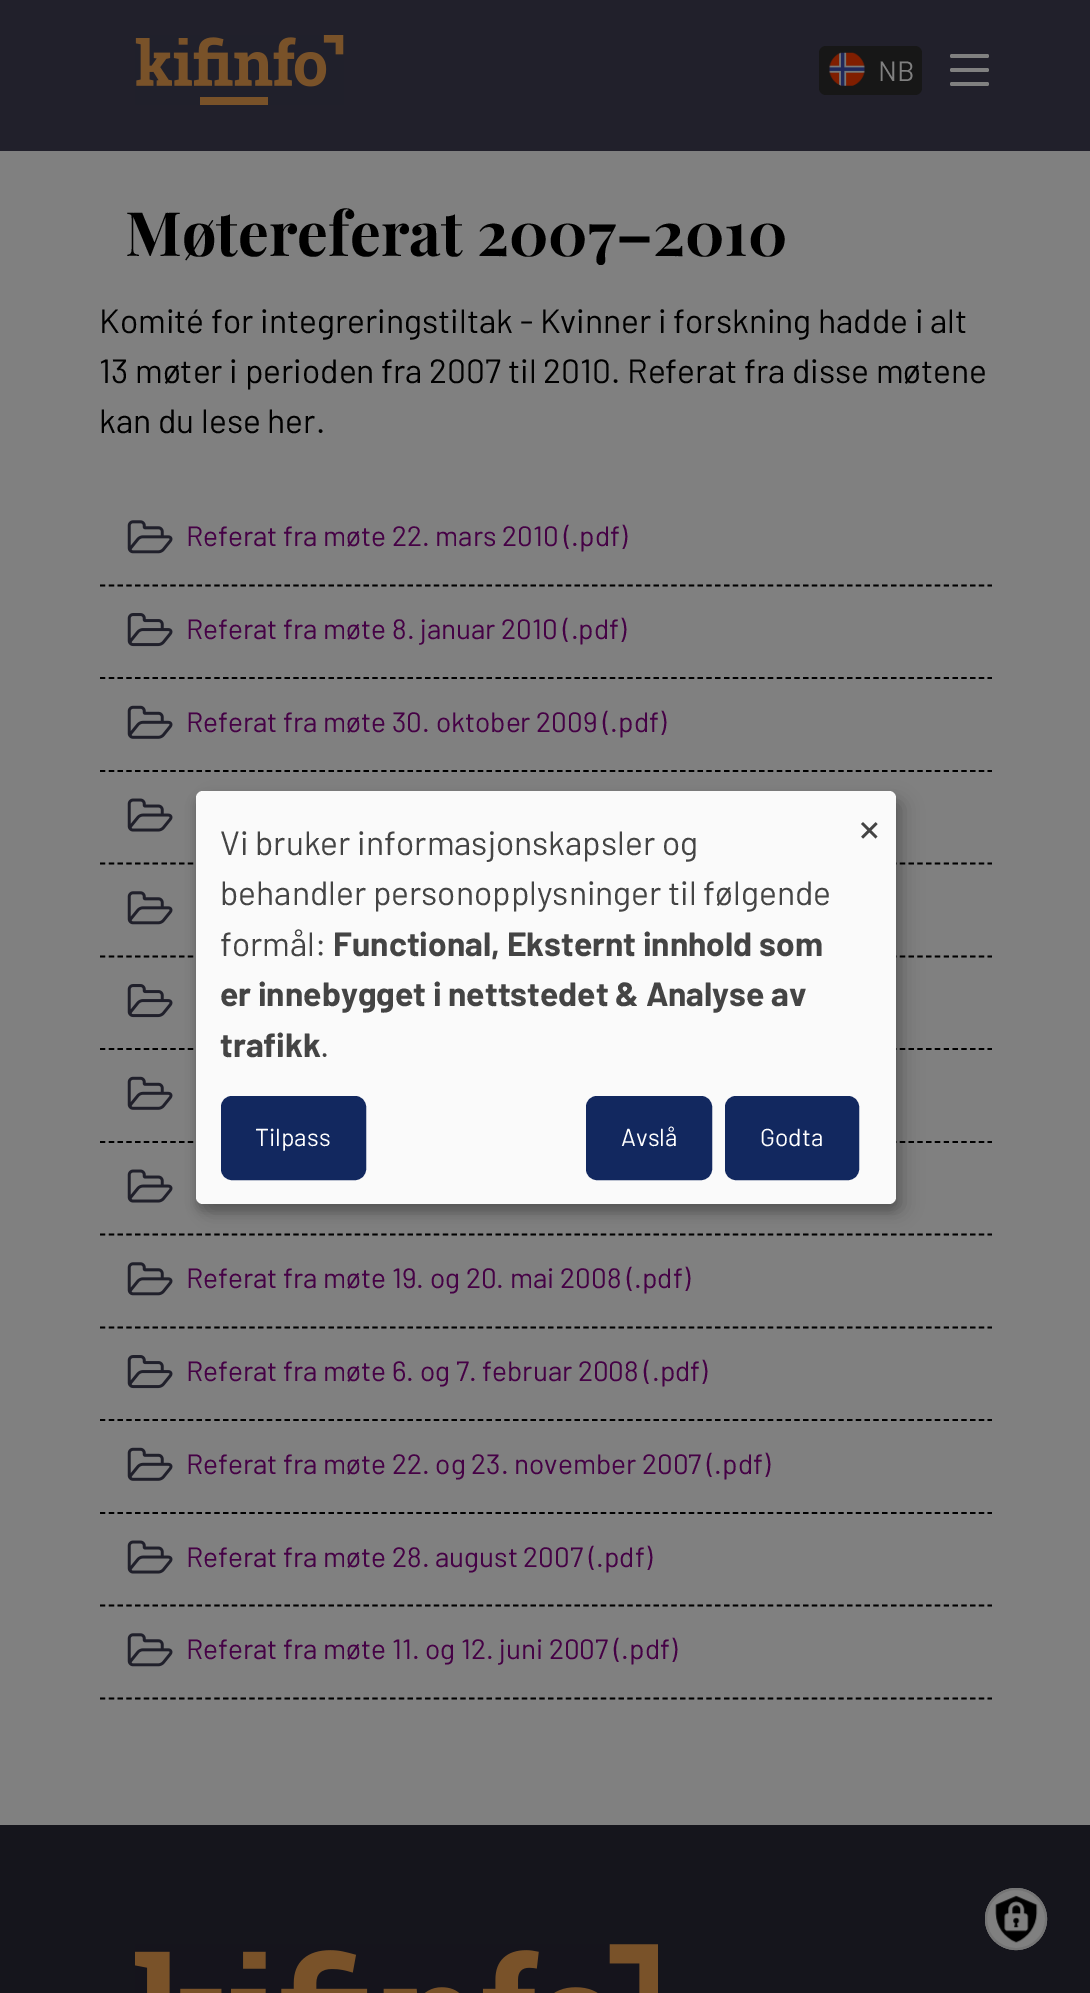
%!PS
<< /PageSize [1090 1993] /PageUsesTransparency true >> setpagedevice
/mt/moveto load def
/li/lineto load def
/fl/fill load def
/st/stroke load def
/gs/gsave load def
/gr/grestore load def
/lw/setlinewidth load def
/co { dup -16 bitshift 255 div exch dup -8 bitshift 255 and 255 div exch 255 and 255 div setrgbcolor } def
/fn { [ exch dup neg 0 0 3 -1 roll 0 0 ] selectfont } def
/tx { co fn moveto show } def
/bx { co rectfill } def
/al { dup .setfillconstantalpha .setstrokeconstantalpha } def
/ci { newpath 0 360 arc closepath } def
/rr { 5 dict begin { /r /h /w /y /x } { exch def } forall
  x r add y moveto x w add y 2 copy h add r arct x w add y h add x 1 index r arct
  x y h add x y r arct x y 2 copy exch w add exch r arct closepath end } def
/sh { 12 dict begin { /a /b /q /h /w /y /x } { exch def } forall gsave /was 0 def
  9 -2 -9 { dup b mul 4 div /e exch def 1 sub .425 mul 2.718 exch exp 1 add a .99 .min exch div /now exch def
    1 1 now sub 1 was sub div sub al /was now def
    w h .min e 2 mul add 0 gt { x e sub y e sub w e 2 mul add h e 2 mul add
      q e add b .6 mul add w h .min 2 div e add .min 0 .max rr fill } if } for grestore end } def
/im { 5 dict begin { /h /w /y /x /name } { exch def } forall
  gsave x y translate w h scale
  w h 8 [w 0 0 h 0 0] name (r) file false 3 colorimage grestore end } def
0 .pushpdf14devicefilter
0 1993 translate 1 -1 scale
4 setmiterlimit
0 0 1090 1993 16#808080 bx
0 0 1090 151 16#21202B bx
(media/1.raw) 135 35 209 70 im
16#171717 co
819 46 103 49 7 rr fl
(media/2.raw) 829 52 36 34 im
16#808080 co
950 54 39 4 2 rr fl
950 68 39 4 2 rr fl
950 82 39 4 2 rr fl
16#000000 co
1.8 lw
[5.25 3.54] 0 setdash
100 585.5 mt 992 585.5 li st
(media/3.raw) 127 520 46 34 im
100 678 mt 992 678 li st
(media/4.raw) 127 613 46 34 im
100 771 mt 992 771 li st
(media/5.raw) 127 705 46 34 im
100 863.5 mt 992 863.5 li st
(media/6.raw) 127 798 46 34 im
100 956.5 mt 992 956.5 li st
(media/3.raw) 127 891 46 34 im
100 1049 mt 992 1049 li st
(media/4.raw) 127 984 46 34 im
100 1142 mt 992 1142 li st
(media/5.raw) 127 1076 46 34 im
100 1234.5 mt 992 1234.5 li st
(media/6.raw) 127 1169 46 34 im
100 1327.5 mt 992 1327.5 li st
(media/3.raw) 127 1262 46 34 im
100 1420 mt 992 1420 li st
(media/4.raw) 127 1355 46 34 im
100 1513 mt 992 1513 li st
(media/5.raw) 127 1447 46 34 im
100 1605.5 mt 992 1605.5 li st
(media/6.raw) 127 1540 46 34 im
100 1698.5 mt 992 1698.5 li st
(media/3.raw) 127 1633 46 34 im
0 1825 1090 168 16#15151C bx
(media/7.raw) 135 1944 523 49 im
16#000000 co
205 800 700 413 7 9 .19 sh
196 798 700 413 7 5 .2 sh
16#FAFAFA co
196 791 700 413 7 rr fl
16#12285F co
223.5 1098.5 140 79 8.5 rr gs fl gr
5 lw
[] 0 setdash
st
588.5 1098.5 121 79 8.5 rr gs fl gr
st
727.5 1098.5 129 79 8.5 rr gs fl gr
st
16#808080 co
1016 1919 31 ci fl
(media/8.raw) 995 1895 43 48 im
16#757575 co
2 lw
1016 1919 30 ci st
(NB) 878 81 /Barlow-Regular 28 16#808080 tx
(Møtereferat 2007–2010) 125 256 /PlayfairDisplay-Bold 61.25 16#000000 tx
(Komité for integreringstiltak - Kvinner i forskning hadde i alt) 99 333 /Barlow-Regular 33.6 16#000000 tx
(13 møter i perioden fra 2007 til 2010. Referat fra disse møtene) 99 383 /Barlow-Regular 33.6 16#000000 tx
(kan du lese her.) 99 433 /Barlow-Regular 33.6 16#000000 tx
(Referat fra møte 22. mars 2010 \(.pdf\)) 186 546 /Barlow-Regular 28 16#450145 tx
(Referat fra møte 8. januar 2010 \(.pdf\)) 186 639 /Barlow-Regular 28 16#450145 tx
(Referat fra møte 30. oktober 2009 \(.pdf\)) 186 732 /Barlow-Regular 28 16#450145 tx
(Referat fra møte 19. og 20. mai 2008 \(.pdf\)) 186 1288 /Barlow-Regular 28 16#450145 tx
(Referat fra møte 6. og 7. februar 2008 \(.pdf\)) 186 1381 /Barlow-Regular 28 16#450145 tx
(Referat fra møte 22. og 23. november 2007 \(.pdf\)) 186 1474 /Barlow-Regular 28 16#450145 tx
(Referat fra møte 28. august 2007 \(.pdf\)) 186 1567 /Barlow-Regular 28 16#450145 tx
(Referat fra møte 11. og 12. juni 2007 \(.pdf\)) 186 1659 /Barlow-Regular 28 16#450145 tx
(Vi bruker informasjonskapsler og) 220 855 /Barlow-Regular 33.6 16#444444 tx
(behandler personopplysninger til følgende) 220 905 /Barlow-Regular 33.6 16#444444 tx
(formål:) 220 956 /Barlow-Regular 33.6 16#444444 tx
(Functional, Eksternt innhold som) 333 956 /Barlow-Bold 33.6 16#444444 tx
(er innebygget i nettstedet & Analyse av) 220 1006 /Barlow-Bold 33.6 16#444444 tx
(trafikk) 220 1057 /Barlow-Bold 33.6 16#444444 tx
(.) 320 1057 /Barlow-Regular 33.6 16#444444 tx
(Tilpass) 255 1146 /Barlow-Regular 24.5 16#FFFFFF tx
(Avslå) 621 1146 /Barlow-Regular 24.5 16#FFFFFF tx
(Godta) 760 1146 /Barlow-Regular 24.5 16#FFFFFF tx
(×) 859 846 /Barlow-Regular 49 16#444444 tx
.poppdf14devicefilter showpage
